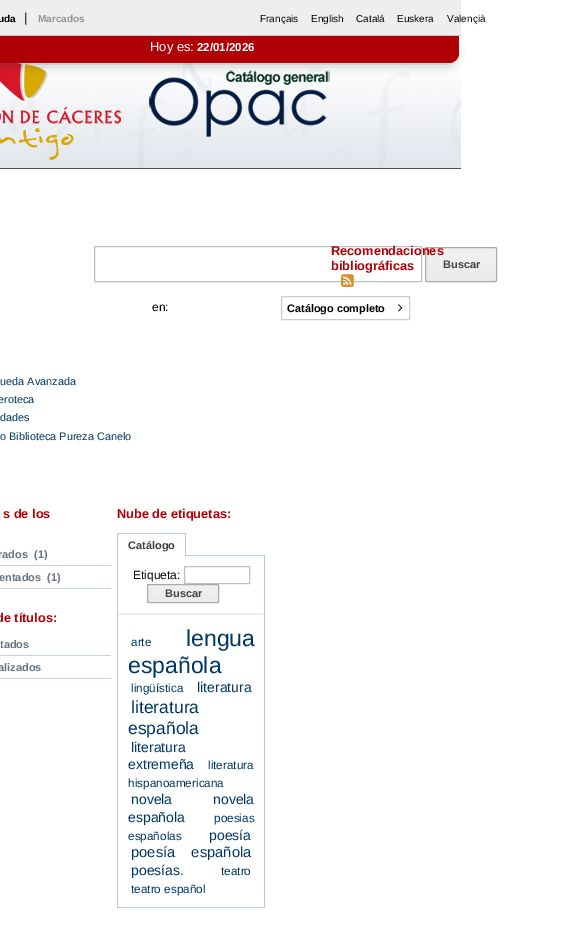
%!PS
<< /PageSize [569 927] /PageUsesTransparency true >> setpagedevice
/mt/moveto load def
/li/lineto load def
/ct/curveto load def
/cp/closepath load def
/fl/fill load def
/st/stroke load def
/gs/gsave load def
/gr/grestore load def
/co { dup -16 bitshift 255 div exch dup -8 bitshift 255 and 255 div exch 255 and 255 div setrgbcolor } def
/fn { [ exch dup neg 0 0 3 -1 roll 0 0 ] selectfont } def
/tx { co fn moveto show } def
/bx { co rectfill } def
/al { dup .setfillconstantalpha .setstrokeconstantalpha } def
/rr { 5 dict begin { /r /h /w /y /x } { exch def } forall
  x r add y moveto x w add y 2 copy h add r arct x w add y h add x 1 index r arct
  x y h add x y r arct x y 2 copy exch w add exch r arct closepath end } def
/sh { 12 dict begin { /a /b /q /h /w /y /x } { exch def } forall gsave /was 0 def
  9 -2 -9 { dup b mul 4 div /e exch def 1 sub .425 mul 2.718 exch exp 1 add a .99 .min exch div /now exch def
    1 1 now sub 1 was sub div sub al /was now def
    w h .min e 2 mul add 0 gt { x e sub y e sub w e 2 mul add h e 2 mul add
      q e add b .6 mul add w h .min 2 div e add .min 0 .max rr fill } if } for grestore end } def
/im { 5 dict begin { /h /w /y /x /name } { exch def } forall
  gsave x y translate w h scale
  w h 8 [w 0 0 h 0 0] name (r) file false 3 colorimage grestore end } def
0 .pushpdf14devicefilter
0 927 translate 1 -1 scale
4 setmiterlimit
0 0 569 927 16#FFFFFF bx
0 0 461 35 16#EEEEEE bx
0 35 461 1 16#CCCCCC bx
(media/1.raw) 0 44 461 124 im
(media/2.raw) 0 63 123 97 im
(media/3.raw) 149 70 181 67 im
16#2C3232 co
-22 49 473 11 2 6.5 .75 sh
16#AE0005 co
0 36 mt 459 36 li 459 53 li 459 58.5 454.5 63 449 63 ct 0 63 li cp fl
0 168 461 1 16#524E4F bx
16#BCC3C8 co
94.5 246.5 327 35 rectstroke
(media/4.raw) 341 274 13 14 im
16#A2A2A2 co
425 247 72 35 2 rr fl
gs
425 247 72 35 2 rr clip newpath
0.85 al
gs 425 248 mt 497 248 li 497 281 li 425 281 li cp clip newpath
<< /ShadingType 2 /ColorSpace /DeviceRGB /Coords [461 248 461 281] /Extend [true true] /Function << /FunctionType 2 /Domain [0 1] /C0 [1 1 1] /C1 [.969 .969 .969] /N 1 >> >> shfill gr
gr
16#AAAAAA co
425.5 247.5 71 34 1.5 rr st
16#CCCCCC co
281.5 296.5 128 23 rectstroke
(media/5.raw) 398 304 5 8 im
0 565 111 1 16#C6D1E3 bx
0 588 111 1 16#C6D1E3 bx
0 655 111 1 16#C6D1E3 bx
0 678 111 1 16#C6D1E3 bx
117 555 148 353 16#BACCDB bx
118 555 67 1 16#FFFFFF bx
117 533 69 1 16#BACCDB bx
185 533 1 23 16#BACCDB bx
117 533 1 23 16#BACCDB bx
118 556 146 351 16#FFFFFF bx
118 613 146 2 16#EEEEEE bx
16#BCC3C8 co
184.5 566.5 65 17 rectstroke
16#A2A2A2 co
147 584 72 19 2 rr fl
gs
147 584 72 19 2 rr clip newpath
0.85 al
gs 147 585 mt 219 585 li 219 602 li 147 602 li cp clip newpath
<< /ShadingType 2 /ColorSpace /DeviceRGB /Coords [183 585 183 602] /Extend [true true] /Function << /FunctionType 2 /Domain [0 1] /C0 [1 1 1] /C1 [.969 .969 .969] /N 1 >> >> shfill gr
gr
16#AAAAAA co
147.5 584.5 71 18 1.5 rr st
(uda) -2 22 /LiberationSans-Bold 10 16#000000 tx
(|) 24 22 /LiberationSans-Regular 13 16#000000 tx
(Marcados) 38 22 /LiberationSans-Bold 10 16#939393 tx
(Français) 260 22 /LiberationSans-Regular 10 16#000000 tx
(English) 311 22 /LiberationSans-Regular 10 16#000000 tx
(Catalá) 356 22 /LiberationSans-Regular 10 16#000000 tx
(Euskera) 397 22 /LiberationSans-Regular 10 16#000000 tx
(Valençià) 447 22 /LiberationSans-Regular 10 16#000000 tx
(Hoy es:) 150 51 /LiberationSans-Regular 13 16#FFFFFF tx
(22/01/2026) 197 51 /LiberationSans-Bold 11.5 16#FFFFFF tx
(Recomendaciones) 331 255 /LiberationSans-Bold 12.75 16#AE0005 tx
(bibliográficas) 331 270 /LiberationSans-Bold 12.75 16#AE0005 tx
(Buscar) 443 268 /LiberationSans-Bold 11 16#444444 tx
(en:) 152 311 /LiberationSans-Regular 12 16#000000 tx
(Catálogo completo) 287 312 /LiberationSans-Bold 10.9 16#000000 tx
(ueda Avanzada) 0 385 /LiberationSans-Regular 10.9 16#003666 tx
(eroteca) -2 403 /LiberationSans-Regular 10.9 16#003666 tx
(dades) 0 421 /LiberationSans-Regular 10.9 16#003666 tx
(o Biblioteca Pureza Canelo) 0 440 /LiberationSans-Regular 10.9 16#003666 tx
(s de los) 3 518 /LiberationSans-Bold 12.75 16#AE0005 tx
(rados) -2 558 /LiberationSans-Bold 11 16#68757E tx
(\(1\)) 34 558 /LiberationSans-Bold 11 16#68757E tx
(entados) -1 581 /LiberationSans-Bold 11 16#68757E tx
(\(1\)) 47 581 /LiberationSans-Bold 11 16#68757E tx
(de títulos:) -4 622 /LiberationSans-Bold 12.75 16#AE0005 tx
(tados) 0 648 /LiberationSans-Bold 11 16#68757E tx
(alizados) -2 671 /LiberationSans-Bold 11 16#68757E tx
(Nube de etiquetas:) 117 518 /LiberationSans-Bold 12.75 16#AE0005 tx
(Catálogo) 128 549 /LiberationSans-Bold 11 16#3A3E41 tx
(Etiqueta:) 133 579 /LiberationSans-Regular 12 16#000000 tx
(Buscar) 165 597 /LiberationSans-Bold 11 16#444444 tx
(arte) 131 646 /LiberationSans-Regular 11.75 16#003666 tx
(lengua) 186 646 /LiberationSans-Regular 23 16#003666 tx
(española) 128 673 /LiberationSans-Regular 23 16#003666 tx
(lingüística) 131 692 /LiberationSans-Regular 11.75 16#003666 tx
(literatura) 197 692 /LiberationSans-Regular 14 16#003666 tx
(literatura) 131 713 /LiberationSans-Regular 17.5 16#003666 tx
(española) 128 734 /LiberationSans-Regular 17.5 16#003666 tx
(literatura) 131 752 /LiberationSans-Regular 14 16#003666 tx
(extremeña) 128 769 /LiberationSans-Regular 14 16#003666 tx
(literatura) 208 769 /LiberationSans-Regular 11.75 16#003666 tx
(hispanoamericana) 128 787 /LiberationSans-Regular 11.75 16#003666 tx
(novela) 131 804 /LiberationSans-Regular 14 16#003666 tx
(novela) 213 804 /LiberationSans-Regular 14 16#003666 tx
(española) 128 822 /LiberationSans-Regular 14 16#003666 tx
(poesias) 214 822 /LiberationSans-Regular 11.75 16#003666 tx
(españolas) 128 840 /LiberationSans-Regular 11.75 16#003666 tx
(poesía) 209 840 /LiberationSans-Regular 14 16#003666 tx
/LiberationSans-Regular 14.75 fn
131 857 mt 12 0 32 (poesía española) widthshow
(poesías.) 131 875 /LiberationSans-Regular 14 16#003666 tx
(teatro) 221 875 /LiberationSans-Regular 11.75 16#003666 tx
(teatro español) 131 893 /LiberationSans-Regular 11.75 16#003666 tx
.poppdf14devicefilter showpage
